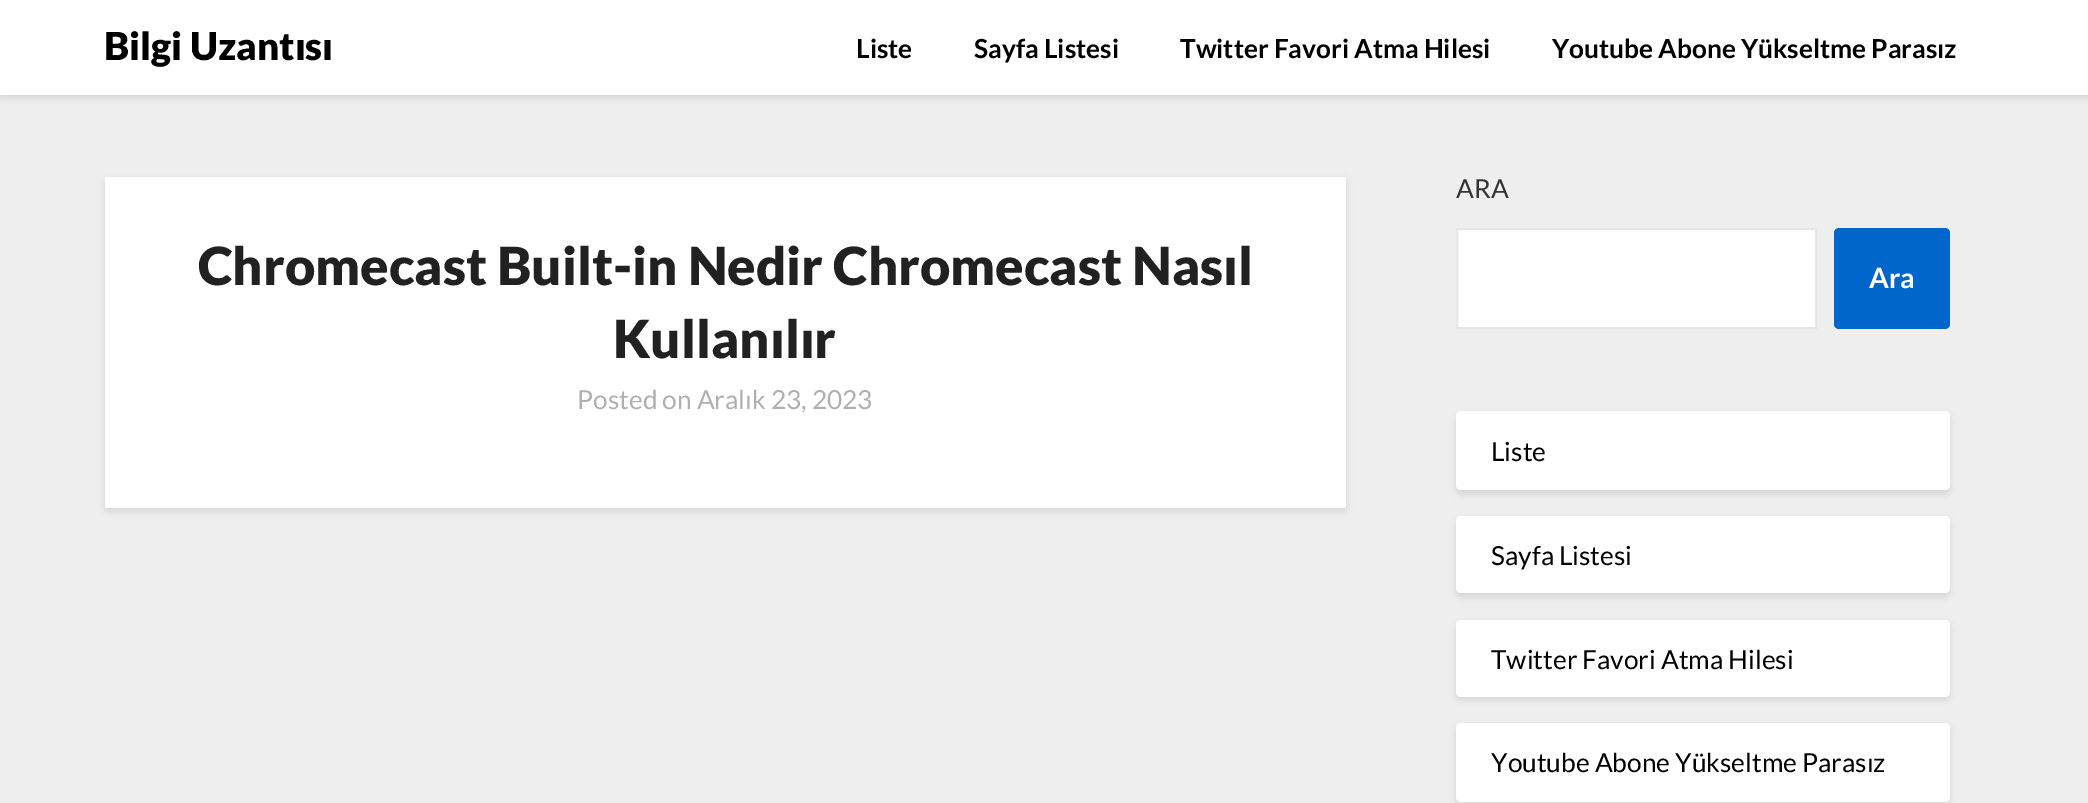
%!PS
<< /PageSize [2088 803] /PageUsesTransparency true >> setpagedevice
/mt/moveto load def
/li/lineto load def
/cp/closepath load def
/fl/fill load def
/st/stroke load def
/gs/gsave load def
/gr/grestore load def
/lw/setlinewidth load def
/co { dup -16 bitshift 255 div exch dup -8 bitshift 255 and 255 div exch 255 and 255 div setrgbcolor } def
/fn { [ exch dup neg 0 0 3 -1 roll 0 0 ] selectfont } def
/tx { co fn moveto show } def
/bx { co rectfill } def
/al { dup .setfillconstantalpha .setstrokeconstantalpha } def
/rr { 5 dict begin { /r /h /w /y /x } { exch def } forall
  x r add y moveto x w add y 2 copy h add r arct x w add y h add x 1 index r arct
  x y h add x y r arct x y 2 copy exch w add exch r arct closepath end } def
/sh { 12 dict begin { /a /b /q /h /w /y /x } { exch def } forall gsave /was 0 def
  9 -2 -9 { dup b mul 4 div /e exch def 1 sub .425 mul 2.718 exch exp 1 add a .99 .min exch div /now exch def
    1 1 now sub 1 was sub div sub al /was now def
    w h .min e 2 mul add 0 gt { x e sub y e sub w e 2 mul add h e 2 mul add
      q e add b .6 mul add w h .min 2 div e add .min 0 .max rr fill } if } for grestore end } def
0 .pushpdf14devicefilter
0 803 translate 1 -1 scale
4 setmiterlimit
0 0 2088 803 16#EEEEEE bx
16#000000 co
0 4 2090 94 0 3.5 .1 sh
0 0 2088 95 16#FFFFFF bx
16#000000 co
105 180 1241 331 2 3.5 .1 sh
16#FFFFFF co
105 177 1241 331 2 rr fl
1457 229 mt 1816 229 li 1816 328 li 1457 328 li cp gs fl gr
16#E5E6E9 co
2 lw
st
16#0066CC co
1834 228 116 101 5 rr fl
16#000000 co
1456 415 494 79 5 3.5 .1 sh
16#FFFFFF co
1456 411 494 79 5 rr fl
16#000000 co
1456 520 494 77 5 3.5 .1 sh
16#FFFFFF co
1456 516 494 77 5 rr fl
16#000000 co
1456 623 494 77 5 3.5 .1 sh
16#FFFFFF co
1456 620 494 77 5 rr fl
16#000000 co
1456 726 494 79 5 3.5 .1 sh
16#FFFFFF co
1456 723 494 79 5 rr fl
(Bilgi Uzantısı) 104 60 /Lato-Black 38.5 16#000000 tx
(Liste) 856 58 /Lato-Bold 26.25 16#000000 tx
(Sayfa Listesi) 974 58 /Lato-Bold 26.25 16#000000 tx
(Twitter Favori Atma Hilesi) 1180 58 /Lato-Bold 26.25 16#000000 tx
(Youtube Abone Yükseltme Parasız) 1552 58 /Lato-Bold 26.25 16#000000 tx
(Chromecast Built-in Nedir Chromecast Nasıl) 198 285 /Lato-Black 52.5 16#212121 tx
(Kullanılır) 613 358 /Lato-Black 52.5 16#212121 tx
(Posted on Aralık 23, 2023) 577 409 /Lato-Regular 26.25 16#AFAFAF tx
(ARA) 1456 198 /Lato-Regular 26.25 16#333333 tx
(Ara) 1869 288 /Lato-Bold 28 16#FFFFFF tx
(Liste) 1491 461 /Lato-Regular 26.25 16#000000 tx
(Sayfa Listesi) 1491 565 /Lato-Regular 26.25 16#000000 tx
(Twitter Favori Atma Hilesi) 1491 669 /Lato-Regular 26.25 16#000000 tx
(Youtube Abone Yükseltme Parasız) 1491 772 /Lato-Regular 26.25 16#000000 tx
.poppdf14devicefilter showpage
